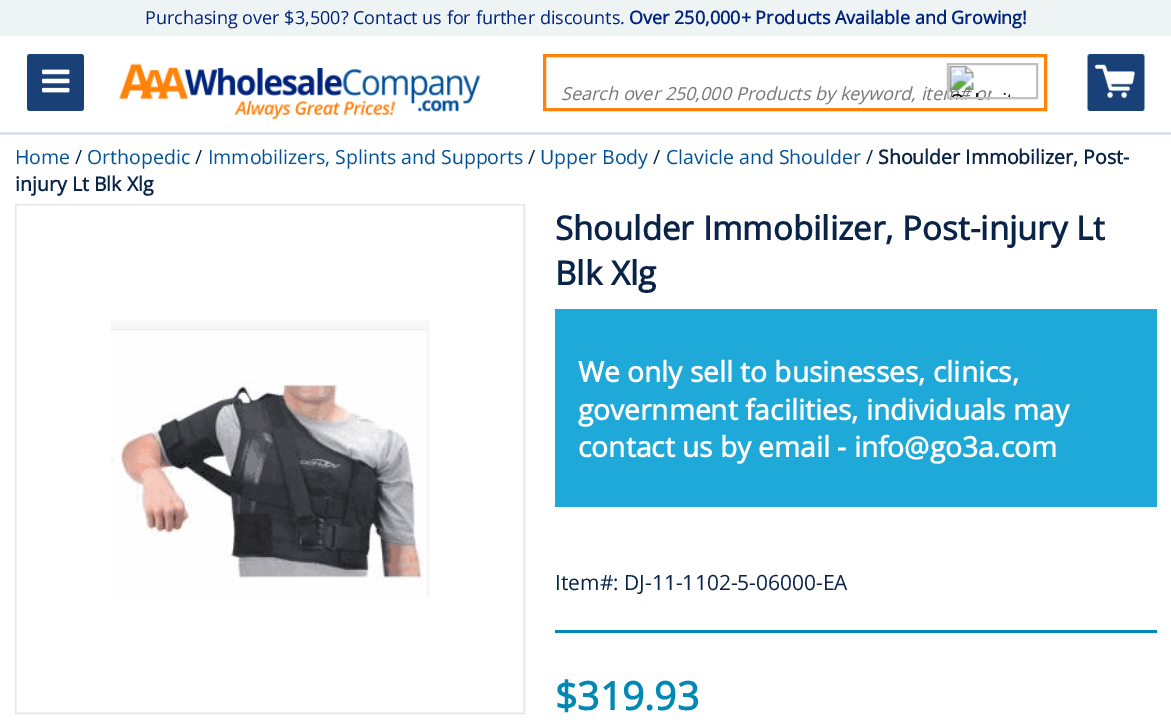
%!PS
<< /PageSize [1171 726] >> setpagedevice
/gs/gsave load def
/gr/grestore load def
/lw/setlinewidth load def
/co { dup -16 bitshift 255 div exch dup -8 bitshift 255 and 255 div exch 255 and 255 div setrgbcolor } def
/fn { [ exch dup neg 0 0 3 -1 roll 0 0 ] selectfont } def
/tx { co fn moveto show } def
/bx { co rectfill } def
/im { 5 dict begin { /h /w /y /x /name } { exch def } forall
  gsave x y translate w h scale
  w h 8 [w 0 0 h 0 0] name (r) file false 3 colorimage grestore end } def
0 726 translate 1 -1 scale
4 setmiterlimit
0 0 1171 726 16#FFFFFF bx
0 132 1171 3 16#DBE1E6 bx
0 0 1171 36 16#EEF3F4 bx
(media/1.raw) 27 54 57 57 im
(media/2.raw) 119 63 362 57 im
16#FF8309 co
3 lw
544.5 55.5 501 54 rectstroke
(media/4.raw) 1087 54 58 57 im
16#E4E6E9 co
2 lw
16 205 508 508 rectstroke
(media/5.raw) 16 205 508 508 im
555 309 602 198 16#1FA9D9 bx
555 630 602 3 16#0288B4 bx
(Purchasing over $3,500? Contact us for further discounts.) 145 24 /OpenSans-Regular 18 16#00237C tx
(Over 250,000+ Products Available and Growing!) 629 24 /OpenSans-Bold 18 16#00237C tx
gs
561 81 431 26 rectclip
(Search over 250,000 Products by keyword, item# or) 561 100 /OpenSans-Italic 18 16#757575 tx
gr
(media/3.raw) 946 63 65 36 im
16#C0C0C0 co
948 64 89 34 rectstroke
(Home) 15 164 /OpenSans-Regular 19.5 16#005198 tx
(/) 75 164 /OpenSans-Regular 19.5 16#092349 tx
(Orthopedic) 87 164 /OpenSans-Regular 19.5 16#005198 tx
(/) 195 164 /OpenSans-Regular 19.5 16#092349 tx
(Immobilizers, Splints and Supports) 208 164 /OpenSans-Regular 19.5 16#005198 tx
(/) 528 164 /OpenSans-Regular 19.5 16#092349 tx
(Upper Body) 540 164 /OpenSans-Regular 19.5 16#005198 tx
(/) 653 164 /OpenSans-Regular 19.5 16#092349 tx
(Clavicle and Shoulder) 666 164 /OpenSans-Regular 19.5 16#005198 tx
(/) 866 164 /OpenSans-Regular 19.5 16#092349 tx
(Shoulder Immobilizer, Post-) 878 164 /OpenSans-Bold 19.5 16#092349 tx
(injury Lt Blk Xlg) 15 191 /OpenSans-Bold 19.5 16#092349 tx
(Shoulder Immobilizer, Post-injury Lt) 555 240 /OpenSans-Bold 33 16#092349 tx
(Blk Xlg) 555 285 /OpenSans-Bold 33 16#092349 tx
(We only sell to businesses, clinics,) 578 382 /OpenSans-Bold 28.1 16#FFFFFF tx
(government facilities, individuals may) 578 420 /OpenSans-Bold 28.1 16#FFFFFF tx
(contact us by email - info@go3a.com) 578 457 /OpenSans-Bold 28.1 16#FFFFFF tx
(Item#: DJ-11-1102-5-06000-EA) 555 590 /OpenSans-Regular 21 16#092349 tx
($319.93) 555 710 /OpenSans-Bold 39 16#0288B4 tx
showpage
